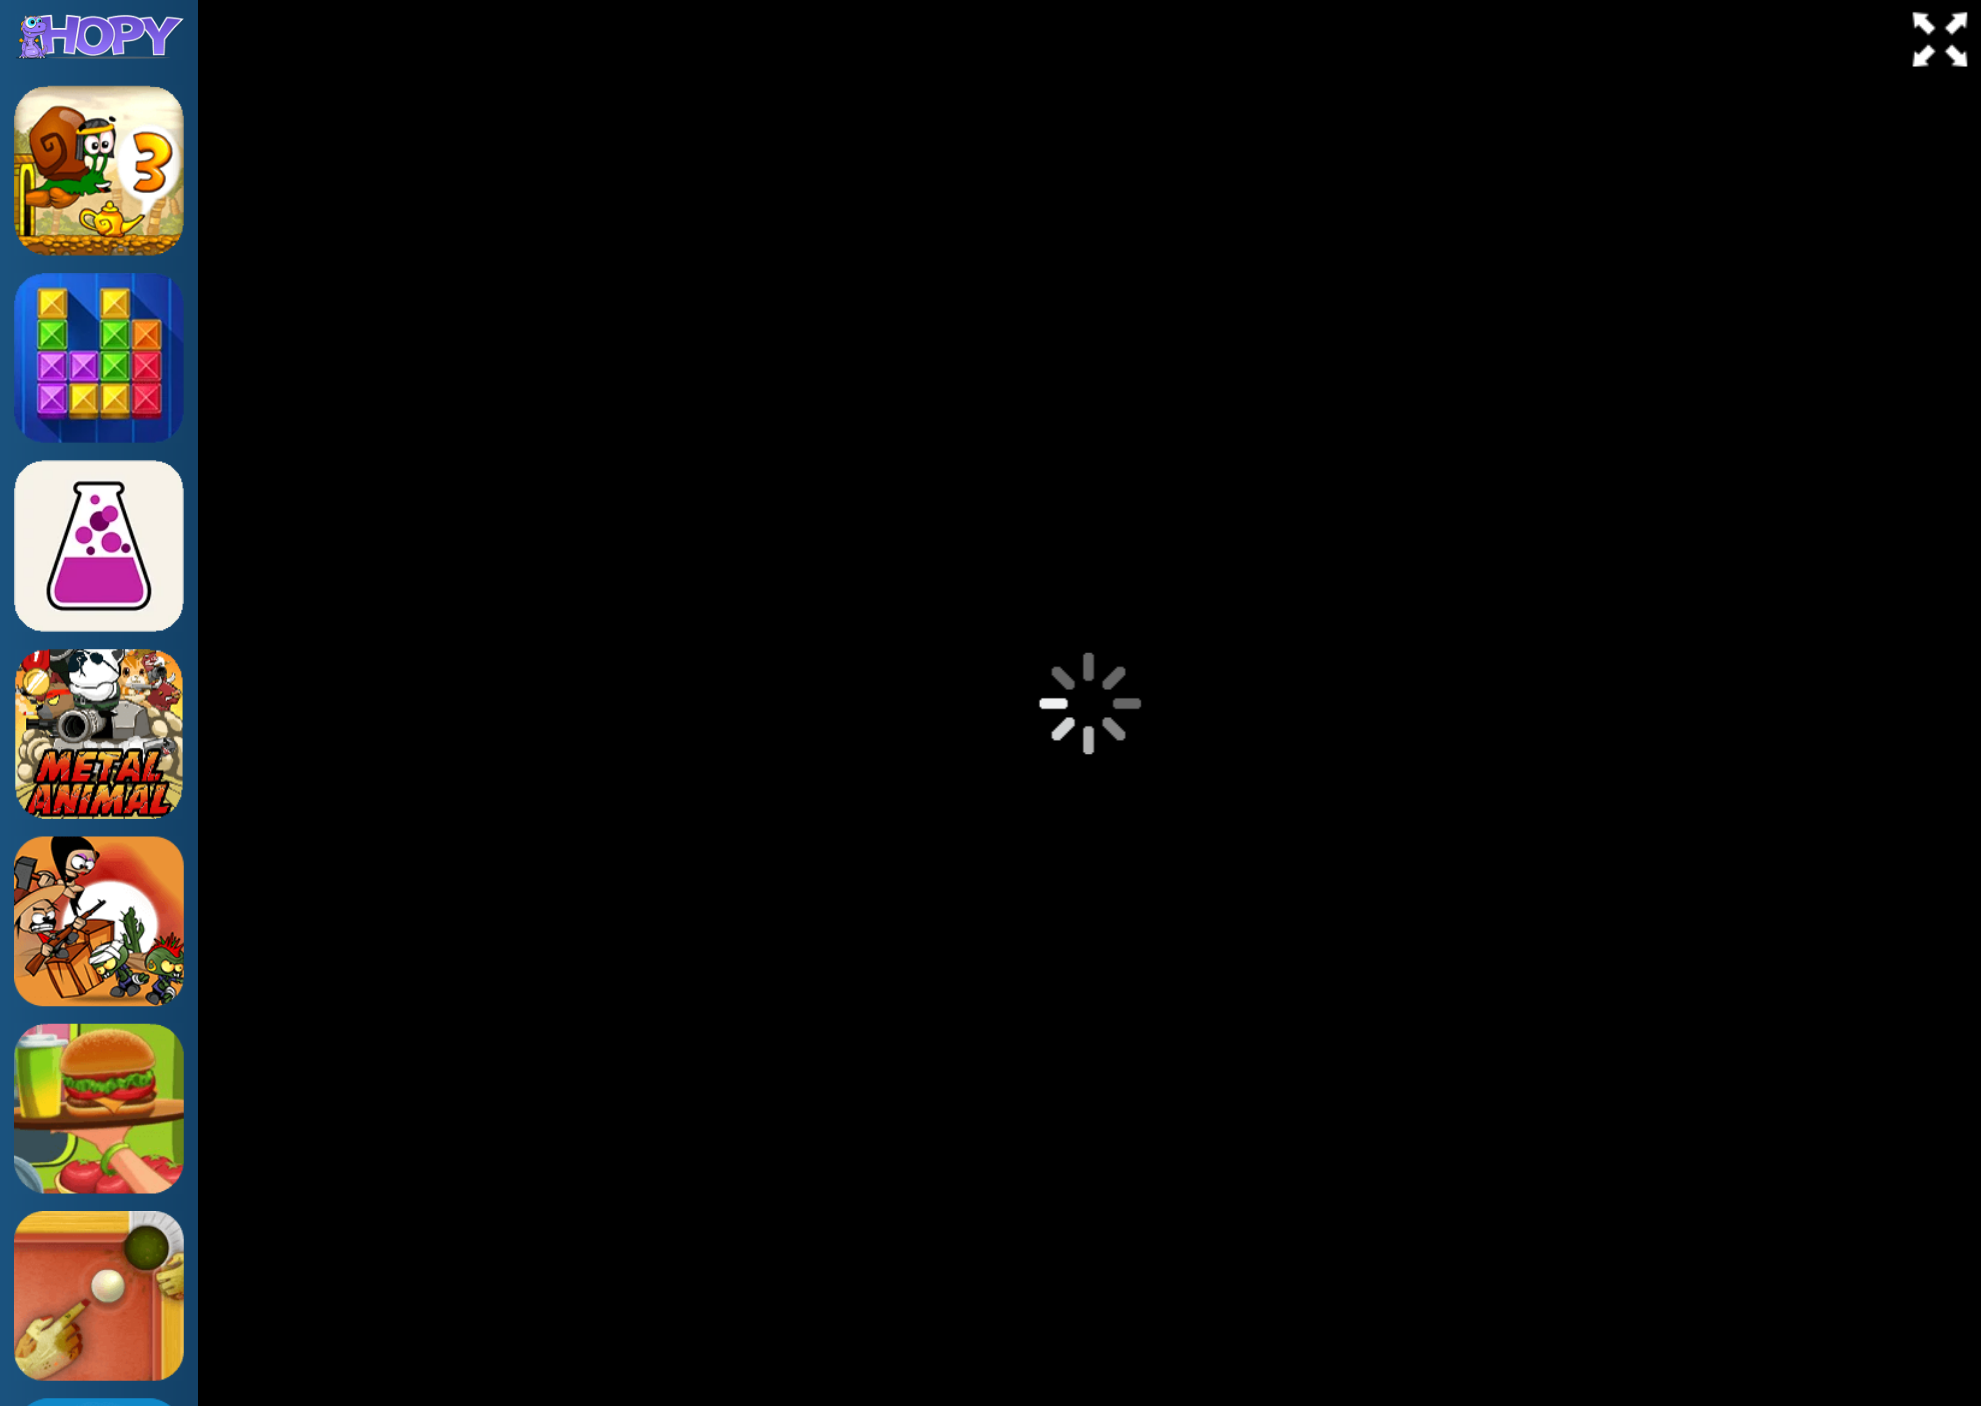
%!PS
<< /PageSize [1981 1406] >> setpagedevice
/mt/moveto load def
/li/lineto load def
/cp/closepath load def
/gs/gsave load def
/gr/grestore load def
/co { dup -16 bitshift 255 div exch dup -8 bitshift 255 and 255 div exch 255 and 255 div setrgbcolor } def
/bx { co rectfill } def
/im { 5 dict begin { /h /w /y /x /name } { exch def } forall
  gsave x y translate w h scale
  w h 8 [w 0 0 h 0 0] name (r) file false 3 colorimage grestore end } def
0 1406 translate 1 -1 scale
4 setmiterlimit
0 0 1981 1406 16#000000 bx
gs 0 0 mt 198 0 li 198 1406 li 0 1406 li cp clip newpath
<< /ShadingType 2 /ColorSpace /DeviceRGB /Coords [0 704 198 704] /Extend [true true] /Function << /FunctionType 2 /Domain [0 1] /C0 [.106 .325 .498] /C1 [.075 .255 .404] /N 1 >> >> shfill gr
(media/1.raw) 15 14 169 46 im
(media/2.raw) 14 85 170 171 im
(media/3.raw) 14 273 170 170 im
(media/4.raw) 14 460 170 172 im
(media/5.raw) 15 649 168 170 im
(media/6.raw) 14 836 170 171 im
(media/7.raw) 14 1023 170 171 im
(media/8.raw) 14 1211 170 170 im
(media/9.raw) 27 1398 144 8 im
(media/10.raw) 1038 652 104 103 im
(media/11.raw) 1912 11 56 56 im
showpage
